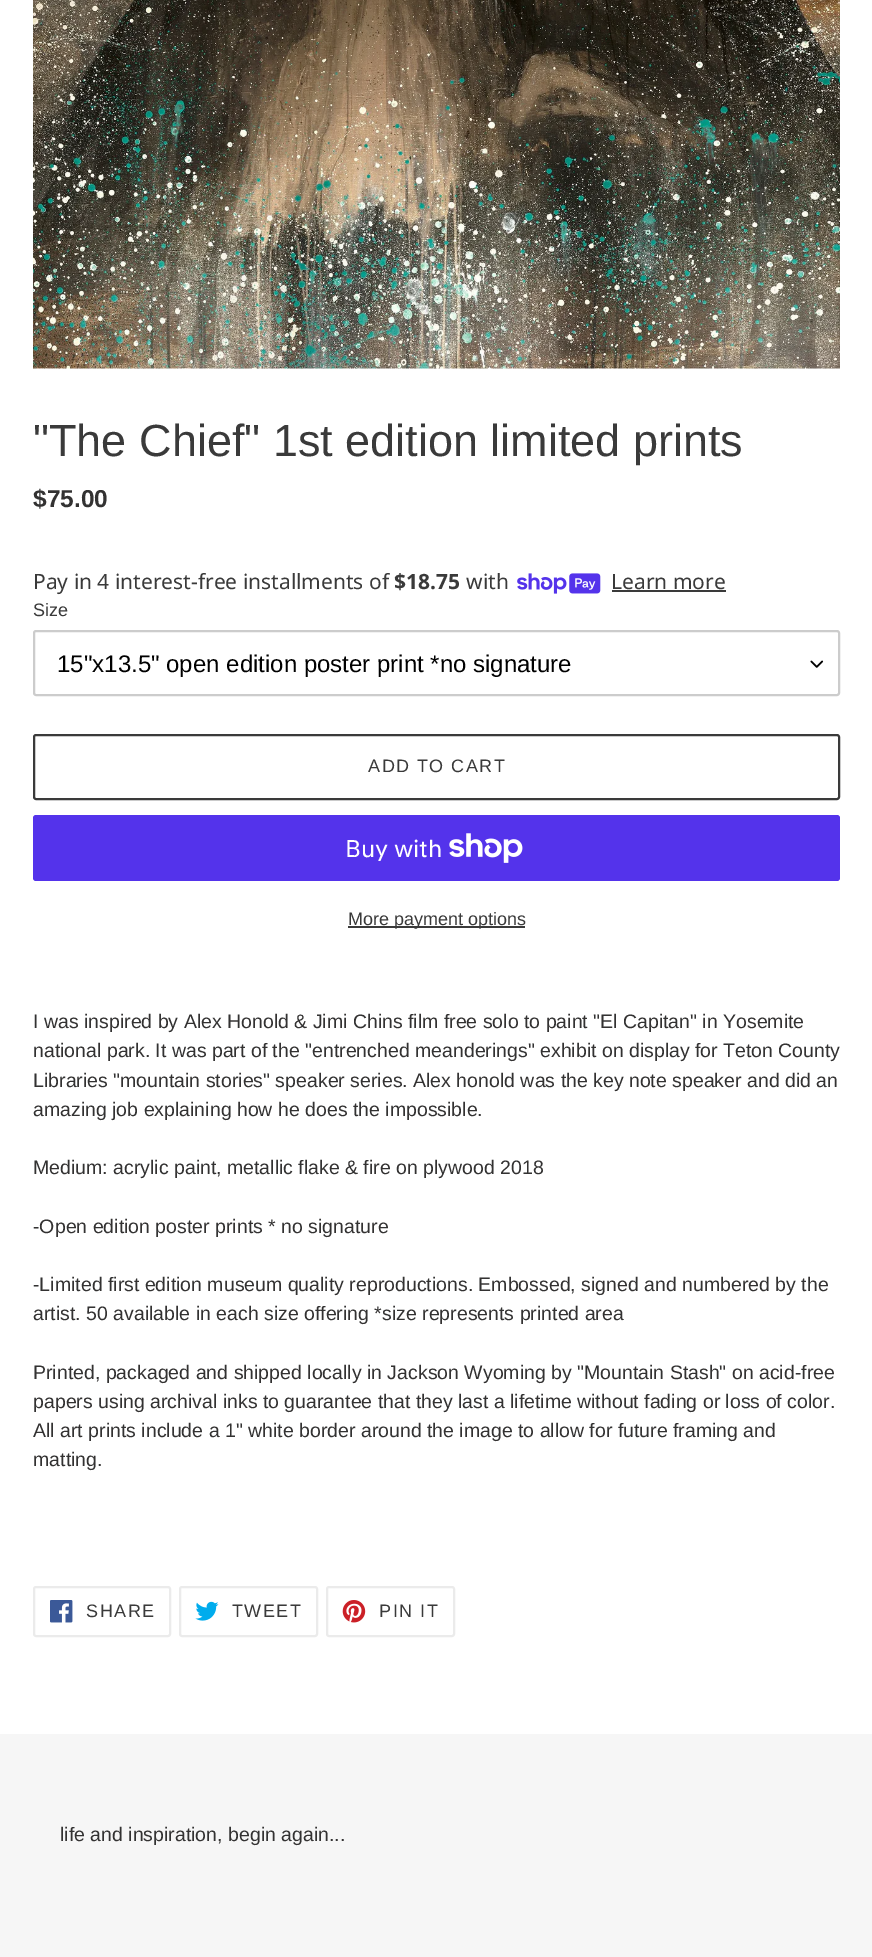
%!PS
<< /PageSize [872 1957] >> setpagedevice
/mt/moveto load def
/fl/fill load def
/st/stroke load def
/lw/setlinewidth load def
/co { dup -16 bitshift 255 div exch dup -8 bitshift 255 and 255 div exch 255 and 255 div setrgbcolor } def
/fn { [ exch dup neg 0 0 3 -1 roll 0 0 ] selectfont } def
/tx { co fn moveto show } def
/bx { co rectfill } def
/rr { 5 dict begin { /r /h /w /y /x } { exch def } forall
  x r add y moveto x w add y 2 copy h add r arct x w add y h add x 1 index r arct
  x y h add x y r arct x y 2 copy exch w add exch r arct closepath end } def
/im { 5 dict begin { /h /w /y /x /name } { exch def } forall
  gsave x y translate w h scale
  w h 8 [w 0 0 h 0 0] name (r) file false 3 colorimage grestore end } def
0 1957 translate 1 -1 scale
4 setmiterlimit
0 0 872 1957 16#FFFFFF bx
(media/1.raw) 33 0 807 369 im
(media/2.raw) 517 573 84 21 im
612 590 114 2 16#3A3A3A bx
(media/3.raw) 810 660 14 8 im
16#CCCCCC co
2 lw
34 631 805 64 2 rr st
16#3A3A3A co
34 735 805 64 2 rr st
16#5433EB co
33 815 807 66 3 rr fl
(media/4.raw) 449 833 74 30 im
348 926 177 2 16#3A3A3A bx
16#EBEBEB co
34 1587 136 49 2 rr st
(media/5.raw) 50 1600 23 23 im
180 1587 137 49 2 rr st
(media/6.raw) 195 1601 24 20 im
327 1587 127 49 2 rr st
(media/7.raw) 342 1600 24 23 im
0 1734 872 223 16#F6F6F6 bx
("The Chief" 1st edition limited prints) 33 456 /LiberationSans-Regular 45 16#3A3A3A tx
($75.00) 33 507 /LiberationSans-Bold 24.5 16#333232 tx
(Pay in 4 interest-free installments of) 33 589 /NotoSans-Regular 21 16#3A3A3A tx
($18.75) 394 589 /NotoSans-Bold 21 16#3A3A3A tx
(with) 466 589 /NotoSans-Regular 21 16#3A3A3A tx
(Learn more) 611 589 /NotoSans-Regular 21 16#3A3A3A tx
(Size) 33 616 /LiberationSans-Regular 18 16#3A3A3A tx
(15"x13.5" open edition poster print *no signature) 57 672 /LiberationSans-Regular 24 16#000000 tx
/LiberationSans-Regular 18 fn
16#3A3A3A co
368 772 mt 1.5 0 (ADD TO CART) ashow
(Buy with) 345 857 /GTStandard-Regular 24 16#FFFFFF tx
(More payment options) 348 925 /LiberationSans-Regular 18 16#3A3A3A tx
(I was inspired by Alex Honold & Jimi Chins film free solo to paint "El Capitan" in Yosemite) 33 1028 /LiberationSans-Regular 19.5 16#333232 tx
(national park. It was part of the "entrenched meanderings" exhibit on display for Teton County) 33 1057 /LiberationSans-Regular 19.5 16#333232 tx
(Libraries "mountain stories" speaker series. Alex honold was the key note speaker and did an) 33 1087 /LiberationSans-Regular 19.5 16#333232 tx
(amazing job explaining how he does the impossible.) 33 1116 /LiberationSans-Regular 19.5 16#333232 tx
(Medium: acrylic paint, metallic flake & fire on plywood 2018) 33 1174 /LiberationSans-Regular 19.5 16#333232 tx
(-Open edition poster prints * no signature) 33 1233 /LiberationSans-Regular 19.5 16#333232 tx
(-Limited first edition museum quality reproductions. Embossed, signed and numbered by the) 33 1291 /LiberationSans-Regular 19.5 16#333232 tx
(artist. 50 available in each size offering *size represents printed area) 33 1320 /LiberationSans-Regular 19.5 16#333232 tx
(Printed, packaged and shipped locally in Jackson Wyoming by "Mountain Stash" on acid-free) 33 1379 /LiberationSans-Regular 19.5 16#333232 tx
(papers using archival inks to guarantee that they last a lifetime without fading or loss of color.) 33 1408 /LiberationSans-Regular 19.5 16#333232 tx
(All art prints include a 1" white border around the image to allow for future framing and) 33 1437 /LiberationSans-Regular 19.5 16#333232 tx
(matting.) 33 1466 /LiberationSans-Regular 19.5 16#333232 tx
/LiberationSans-Regular 18 fn
16#3A3A3A co
86 1617 mt 1.5 0 (SHARE) ashow
232 1617 mt 1.5 0 (TWEET) ashow
379 1617 mt 1.5 0 (PIN IT) ashow
(life and inspiration, begin again...) 60 1841 /LiberationSans-Regular 19.5 16#333232 tx
showpage
